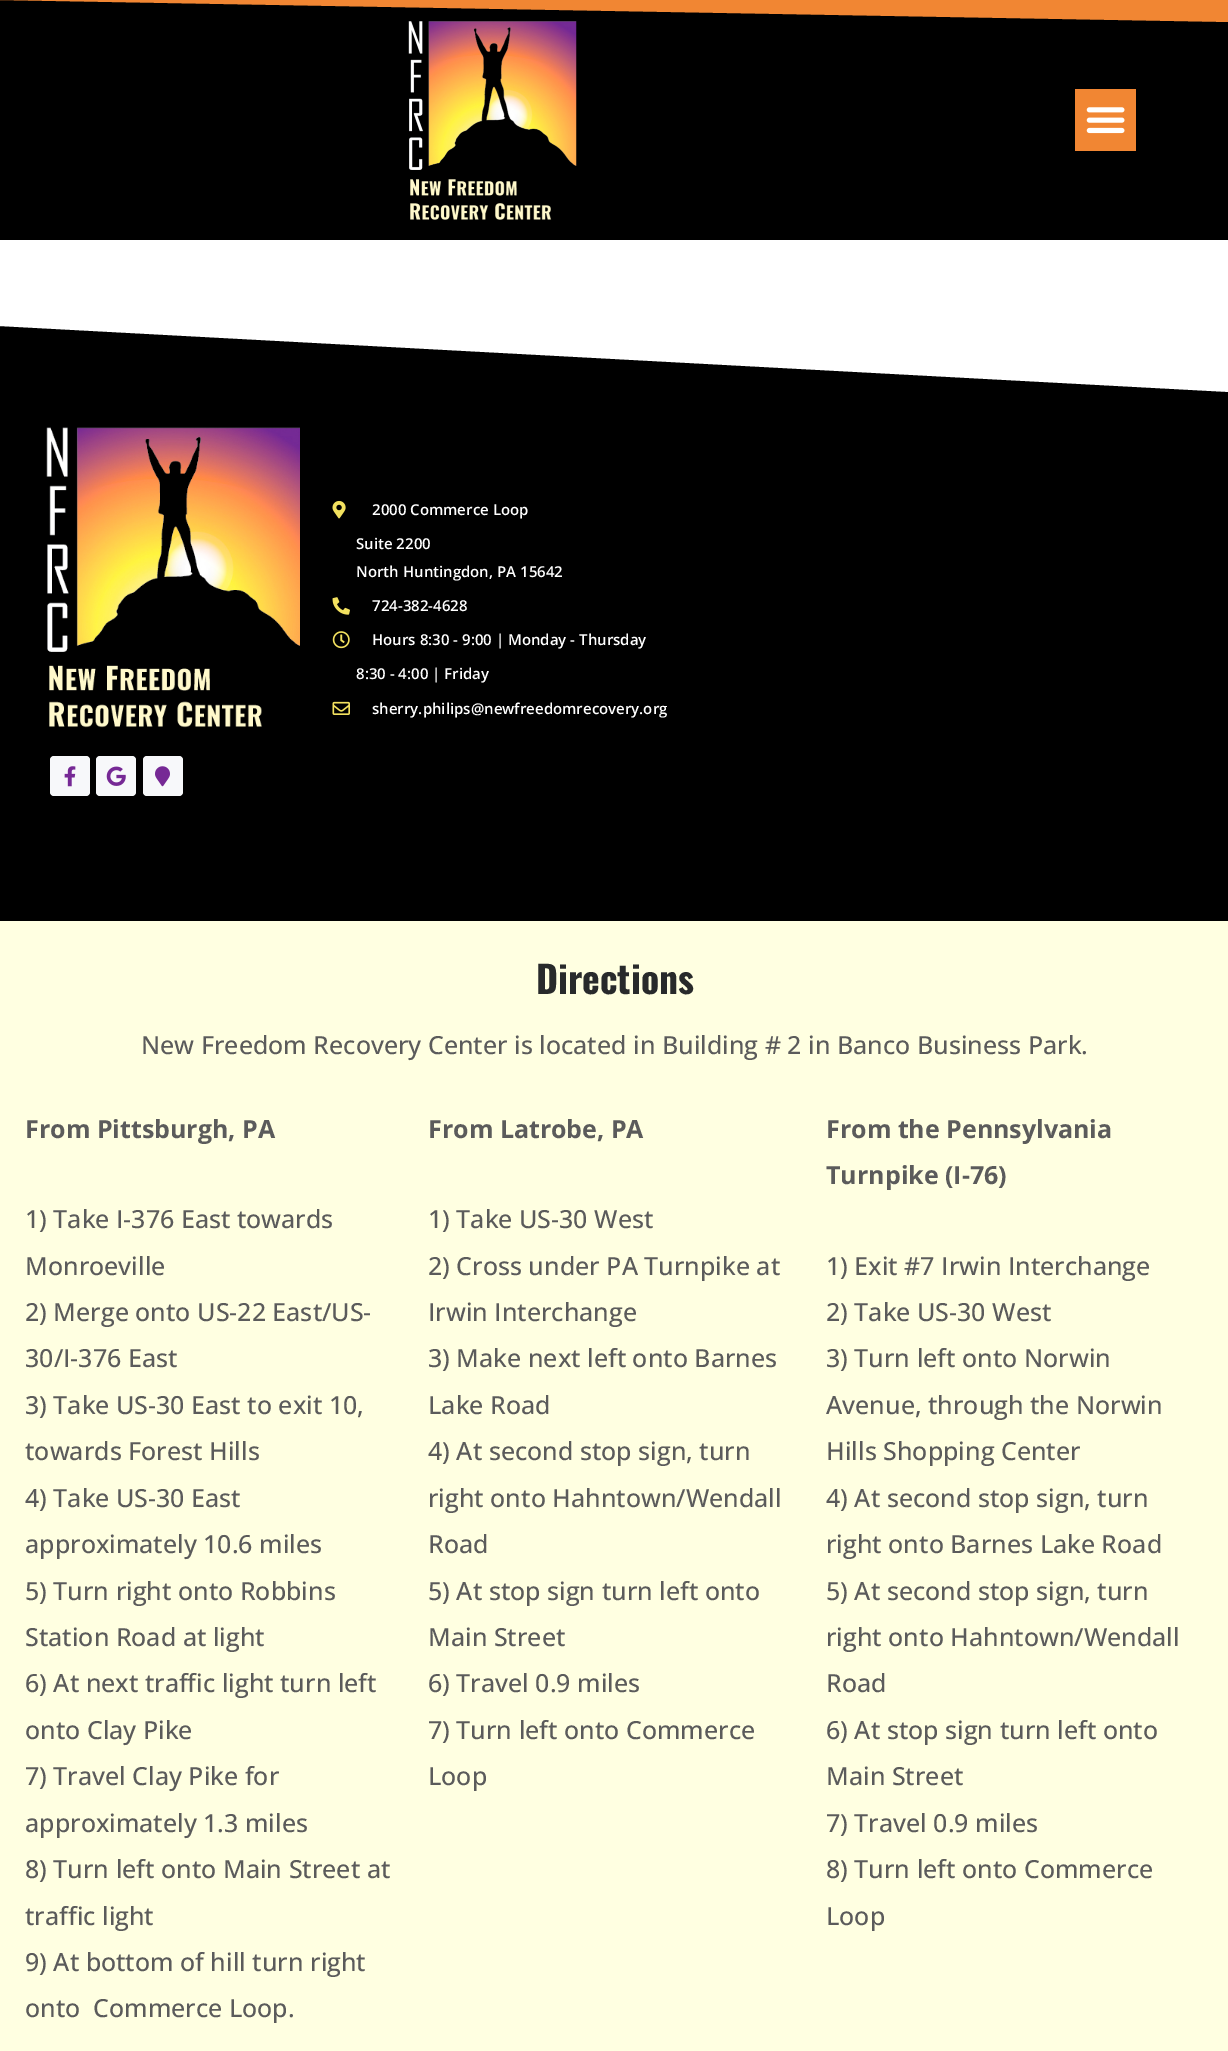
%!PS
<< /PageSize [1228 2051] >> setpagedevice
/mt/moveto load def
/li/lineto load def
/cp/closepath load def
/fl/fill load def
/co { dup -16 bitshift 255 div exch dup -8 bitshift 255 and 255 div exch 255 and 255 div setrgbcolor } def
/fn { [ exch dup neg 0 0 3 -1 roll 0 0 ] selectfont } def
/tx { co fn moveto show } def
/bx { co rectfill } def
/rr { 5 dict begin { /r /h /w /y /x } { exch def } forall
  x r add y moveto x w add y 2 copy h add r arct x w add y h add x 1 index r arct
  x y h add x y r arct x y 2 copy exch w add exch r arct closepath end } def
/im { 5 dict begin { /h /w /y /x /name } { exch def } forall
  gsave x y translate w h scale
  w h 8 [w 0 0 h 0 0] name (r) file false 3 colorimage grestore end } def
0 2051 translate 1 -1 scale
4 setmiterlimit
0 0 1228 2051 16#FFFFFF bx
0 0 1228 240 16#000000 bx
(media/1.raw) 408 21 169 199 im
16#F18633 co
0 0 mt 0 -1 li 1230 -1 li 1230 22 li cp fl
1075 89 61 62 16#F18633 bx
(media/2.raw) 1086 107 39 27 im
0 326 1228 595 16#000000 bx
16#FFFFFF co
0 326 mt 0 321 li 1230 321 li 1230 392 li cp fl
(media/3.raw) 46 427 254 301 im
16#F7F8FA co
50 756 40 40 4 rr fl
(media/4.raw) 64 766 12 21 im
96 756 40 40 4 rr fl
(media/5.raw) 106 766 20 20 im
143 756 40 40 4 rr fl
(media/6.raw) 155 766 15 21 im
(media/7.raw) 332 500 14 19 im
(media/8.raw) 332 597 18 18 im
(media/9.raw) 332 631 18 18 im
(media/10.raw) 332 701 18 14 im
0 921 1228 1130 16#FFFFE1 bx
(2000 Commerce Loop) 372 515 /OpenSans-SemiBold 15 16#FFFFFF tx
(Suite 2200) 356 549 /OpenSans-SemiBold 15 16#FFFFFF tx
(North Huntingdon, PA 15642) 356 577 /OpenSans-SemiBold 15 16#FFFFFF tx
(724-382-4628) 372 611 /OpenSans-SemiBold 15 16#FFFFFF tx
(Hours 8:30 - 9:00 | Monday - Thursday) 372 645 /OpenSans-SemiBold 15 16#FFFFFF tx
(8:30 - 4:00 | Friday) 356 679 /OpenSans-SemiBold 15 16#FFFFFF tx
(sherry.philips@newfreedomrecovery.org) 372 714 /OpenSans-SemiBold 15 16#FFFFFF tx
(Directions) 536 994 /Oswald-Bold 37.5 16#282A2B tx
(New Freedom Recovery Center is located in Building # 2 in Banco Business Park.) 141 1054 /OpenSans-Medium 25 16#5B5B5B tx
(From Pittsburgh, PA) 25 1138 /OpenSans-Bold 25 16#5B5B5B tx
(1\) Take I-376 East towards) 25 1228 /OpenSans-Medium 25 16#5B5B5B tx
(Monroeville) 25 1275 /OpenSans-Medium 25 16#5B5B5B tx
(2\) Merge onto US-22 East/US-) 25 1321 /OpenSans-Medium 25 16#5B5B5B tx
(30/I-376 East) 25 1367 /OpenSans-Medium 25 16#5B5B5B tx
(3\) Take US-30 East to exit 10,) 25 1414 /OpenSans-Medium 25 16#5B5B5B tx
(towards Forest Hills) 25 1460 /OpenSans-Medium 25 16#5B5B5B tx
(4\) Take US-30 East) 25 1507 /OpenSans-Medium 25 16#5B5B5B tx
(approximately 10.6 miles) 25 1553 /OpenSans-Medium 25 16#5B5B5B tx
(5\) Turn right onto Robbins) 25 1600 /OpenSans-Medium 25 16#5B5B5B tx
(Station Road at light) 25 1646 /OpenSans-Medium 25 16#5B5B5B tx
(6\) At next traffic light turn left) 25 1692 /OpenSans-Medium 25 16#5B5B5B tx
(onto Clay Pike) 25 1739 /OpenSans-Medium 25 16#5B5B5B tx
(7\) Travel Clay Pike for) 25 1785 /OpenSans-Medium 25 16#5B5B5B tx
(approximately 1.3 miles) 25 1832 /OpenSans-Medium 25 16#5B5B5B tx
(8\) Turn left onto Main Street at) 25 1878 /OpenSans-Medium 25 16#5B5B5B tx
(traffic light) 25 1925 /OpenSans-Medium 25 16#5B5B5B tx
(9\) At bottom of hill turn right) 25 1971 /OpenSans-Medium 25 16#5B5B5B tx
(onto  Commerce Loop.) 25 2017 /OpenSans-Medium 25 16#5B5B5B tx
(From Latrobe, PA) 428 1138 /OpenSans-Bold 25 16#5B5B5B tx
(1\) Take US-30 West) 428 1228 /OpenSans-Medium 25 16#5B5B5B tx
(2\) Cross under PA Turnpike at) 428 1275 /OpenSans-Medium 25 16#5B5B5B tx
(Irwin Interchange) 428 1321 /OpenSans-Medium 25 16#5B5B5B tx
(3\) Make next left onto Barnes) 428 1367 /OpenSans-Medium 25 16#5B5B5B tx
(Lake Road) 428 1414 /OpenSans-Medium 25 16#5B5B5B tx
(4\) At second stop sign, turn) 428 1460 /OpenSans-Medium 25 16#5B5B5B tx
(right onto Hahntown/Wendall) 428 1507 /OpenSans-Medium 25 16#5B5B5B tx
(Road) 428 1553 /OpenSans-Medium 25 16#5B5B5B tx
(5\) At stop sign turn left onto) 428 1600 /OpenSans-Medium 25 16#5B5B5B tx
(Main Street) 428 1646 /OpenSans-Medium 25 16#5B5B5B tx
(6\) Travel 0.9 miles) 428 1692 /OpenSans-Medium 25 16#5B5B5B tx
(7\) Turn left onto Commerce) 428 1739 /OpenSans-Medium 25 16#5B5B5B tx
(Loop) 428 1785 /OpenSans-Medium 25 16#5B5B5B tx
(From the Pennsylvania) 826 1138 /OpenSans-Bold 25 16#5B5B5B tx
(Turnpike \(I-76\)) 826 1184 /OpenSans-Bold 25 16#5B5B5B tx
(1\) Exit #7 Irwin Interchange) 826 1275 /OpenSans-Medium 25 16#5B5B5B tx
(2\) Take US-30 West) 826 1321 /OpenSans-Medium 25 16#5B5B5B tx
(3\) Turn left onto Norwin) 826 1367 /OpenSans-Medium 25 16#5B5B5B tx
(Avenue, through the Norwin) 826 1414 /OpenSans-Medium 25 16#5B5B5B tx
(Hills Shopping Center) 826 1460 /OpenSans-Medium 25 16#5B5B5B tx
(4\) At second stop sign, turn) 826 1507 /OpenSans-Medium 25 16#5B5B5B tx
(right onto Barnes Lake Road) 826 1553 /OpenSans-Medium 25 16#5B5B5B tx
(5\) At second stop sign, turn) 826 1600 /OpenSans-Medium 25 16#5B5B5B tx
(right onto Hahntown/Wendall) 826 1646 /OpenSans-Medium 25 16#5B5B5B tx
(Road) 826 1692 /OpenSans-Medium 25 16#5B5B5B tx
(6\) At stop sign turn left onto) 826 1739 /OpenSans-Medium 25 16#5B5B5B tx
(Main Street) 826 1785 /OpenSans-Medium 25 16#5B5B5B tx
(7\) Travel 0.9 miles) 826 1832 /OpenSans-Medium 25 16#5B5B5B tx
(8\) Turn left onto Commerce) 826 1878 /OpenSans-Medium 25 16#5B5B5B tx
(Loop) 826 1925 /OpenSans-Medium 25 16#5B5B5B tx
showpage
